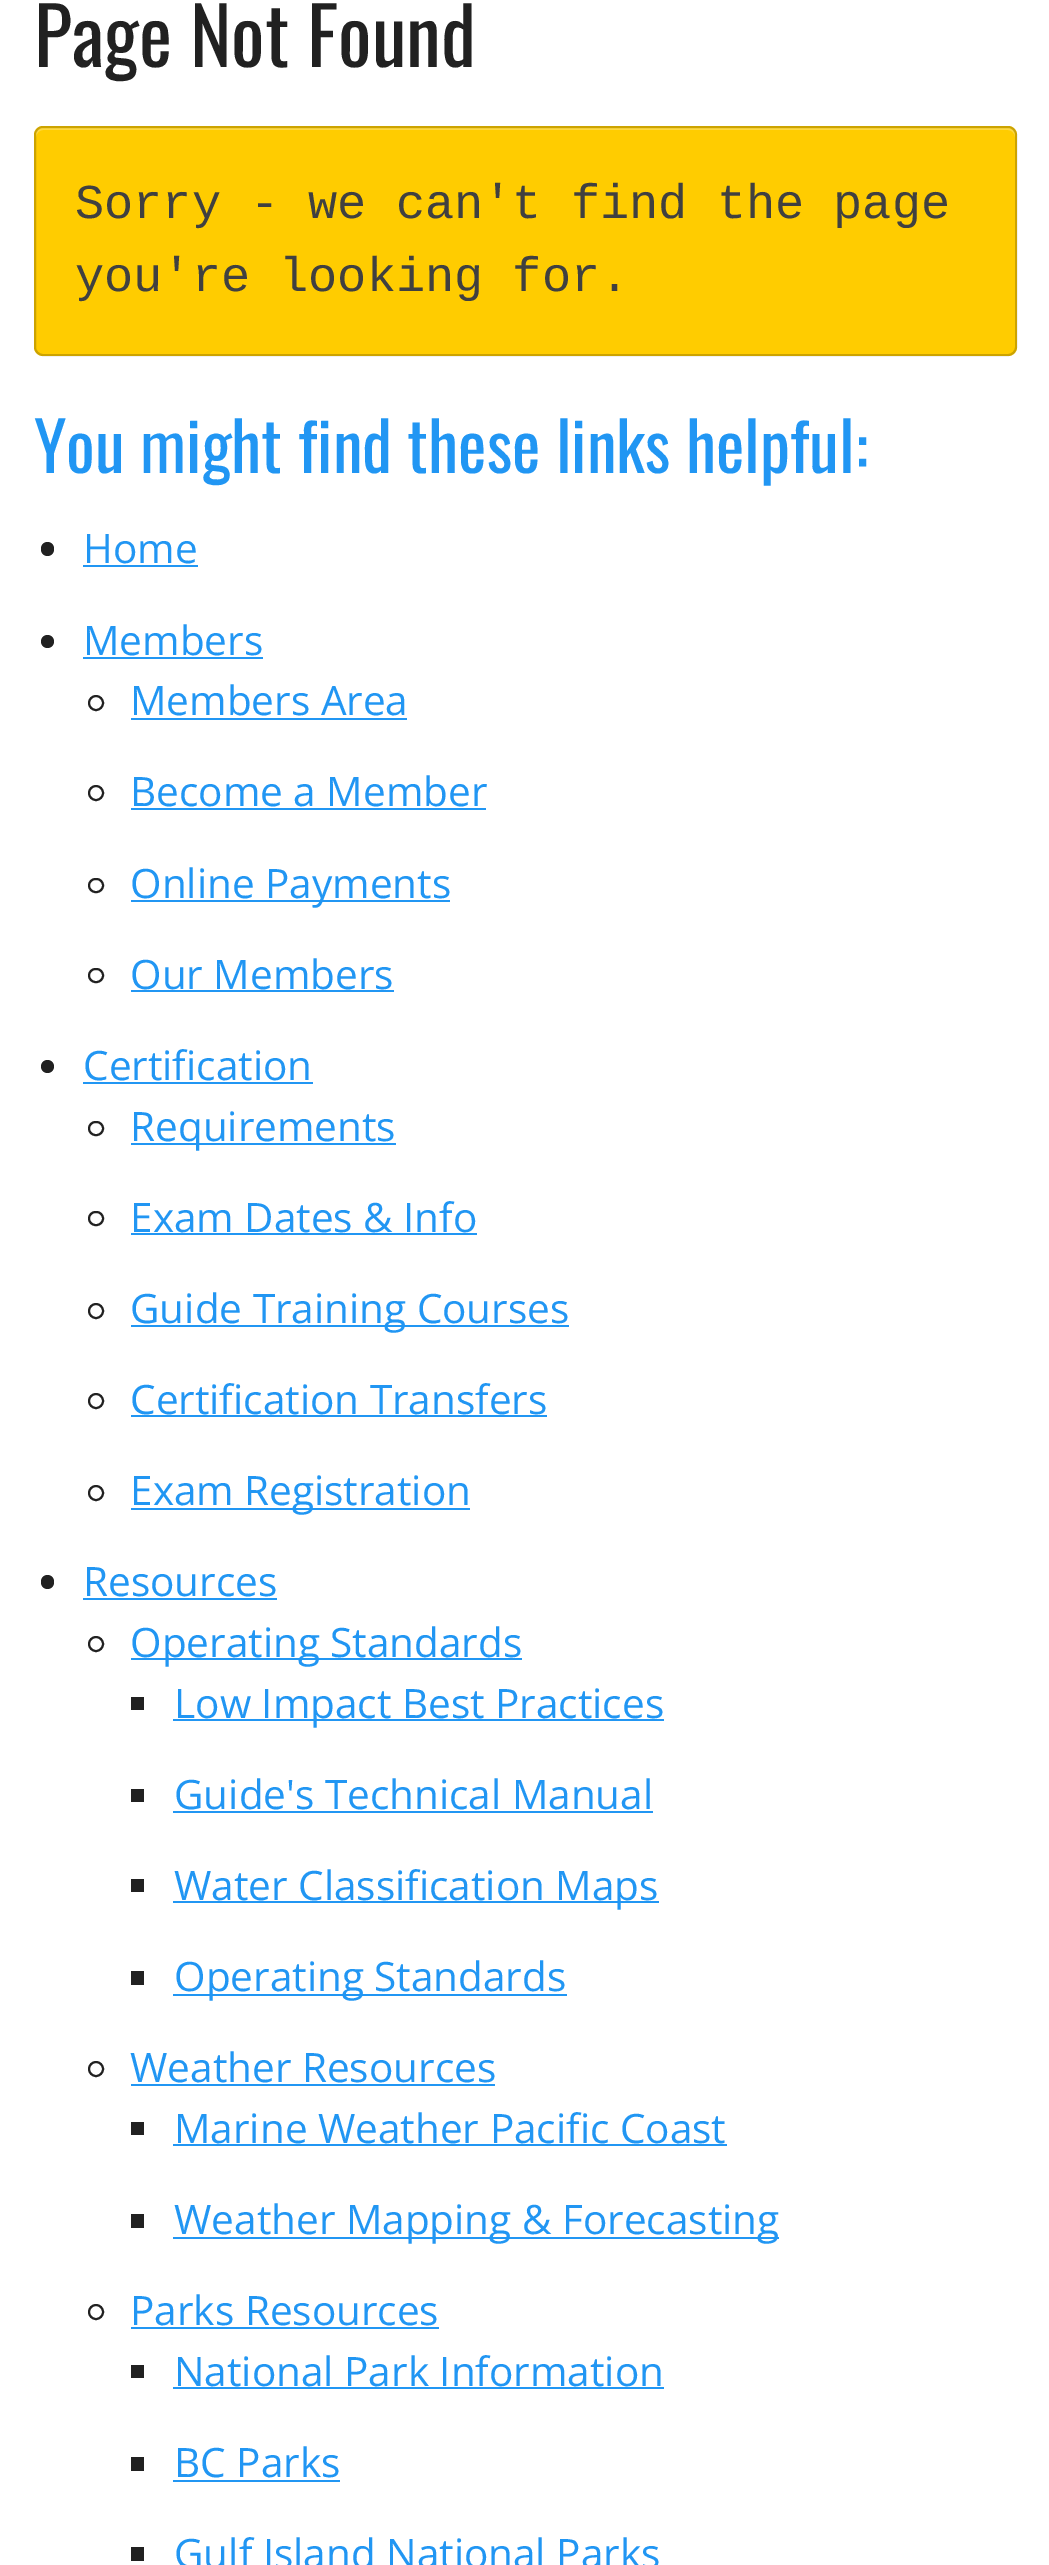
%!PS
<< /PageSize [1049 2565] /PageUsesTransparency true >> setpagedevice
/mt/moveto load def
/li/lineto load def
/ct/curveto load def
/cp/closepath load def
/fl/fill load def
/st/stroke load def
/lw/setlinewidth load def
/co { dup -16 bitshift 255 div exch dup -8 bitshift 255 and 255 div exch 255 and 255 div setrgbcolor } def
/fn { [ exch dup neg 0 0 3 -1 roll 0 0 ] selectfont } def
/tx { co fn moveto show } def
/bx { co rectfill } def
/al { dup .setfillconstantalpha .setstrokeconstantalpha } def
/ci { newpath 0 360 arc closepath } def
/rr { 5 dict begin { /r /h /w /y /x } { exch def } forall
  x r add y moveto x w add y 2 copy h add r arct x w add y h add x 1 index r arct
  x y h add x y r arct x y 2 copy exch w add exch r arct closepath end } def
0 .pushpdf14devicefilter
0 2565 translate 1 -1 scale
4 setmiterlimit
0 0 1049 2565 16#FFFFFF bx
16#FFCC00 co
34 126 983 230 9 rr fl
16#FFD940 co
43 130 mt 1008 130 li 1012 130 1015 134 1015 137 ct 1015 135 li 1015 131 1012 128 1008 128 ct 43 128 li 39 128 36 131 36 135 ct 36 137 li 36 134 39 130 43 130 ct cp fl
0.2 al
16#000000 co
2 lw
35 127 981 228 8 rr st
1 al
16#212121 co
41 542 13 14 6.5 rr fl
83 565 115 2 16#2196F3 bx
16#212121 co
47.5 641.5 6.5 ci fl
83 657 180 2 16#2196F3 bx
16#212121 co
96 703 7 ci st
131 718 276 2 16#2196F3 bx
16#212121 co
96 793 7 ci st
131 808 355 2 16#2196F3 bx
16#212121 co
89 879 14 13 6.5 rr st
131 900 319 2 16#2196F3 bx
16#212121 co
89 969 14 13 6.5 rr st
131 990 263 2 16#2196F3 bx
16#212121 co
47.5 1066.5 6.5 ci fl
83 1082 230 2 16#2196F3 bx
16#212121 co
89 1122 14 13 6.5 rr st
131 1143 265 2 16#2196F3 bx
16#212121 co
89 1212 14 13 6.5 rr st
131 1233 346 2 16#2196F3 bx
16#212121 co
96 1311 7 ci st
131 1325 438 2 16#2196F3 bx
16#212121 co
96 1401 7 ci st
131 1415 416 2 16#2196F3 bx
16#212121 co
96 1493 7 ci st
131 1508 339 2 16#2196F3 bx
16#212121 co
41 1575 13 14 6.5 rr fl
83 1598 194 2 16#2196F3 bx
16#212121 co
96 1644 7 ci st
131 1658 391 2 16#2196F3 bx
131 1697 13 13 16#212121 bx
173 1719 491 2 16#2196F3 bx
131 1789 13 13 16#212121 bx
173 1811 480 2 16#2196F3 bx
131 1879 13 13 16#212121 bx
173 1901 486 2 16#2196F3 bx
131 1971 13 14 16#212121 bx
173 1994 394 2 16#2196F3 bx
16#212121 co
96 2069 7 ci st
131 2084 364 2 16#2196F3 bx
131 2122 13 13 16#212121 bx
173 2144 554 2 16#2196F3 bx
131 2214 13 14 16#212121 bx
173 2237 606 2 16#2196F3 bx
16#212121 co
96 2312 7 ci st
131 2327 308 2 16#2196F3 bx
131 2365 13 13 16#212121 bx
173 2387 491 2 16#2196F3 bx
131 2457 13 14 16#212121 bx
173 2480 167 2 16#2196F3 bx
131 2547 13 14 16#212121 bx
(Page Not Found) 34 67 /Oswald-Regular 78.75 16#212121 tx
(Sorry - we can't find the page) 75 218 /LiberationMono-Regular 48.6 16#404040 tx
(you're looking for.) 75 291 /LiberationMono-Regular 48.6 16#404040 tx
(You might find these links helpful:) 34 473 /Oswald-Regular 67.5 16#2196F3 tx
(Home) 83 563 /OpenSans-Regular 40.5 16#2196F3 tx
(Members) 83 655 /OpenSans-Regular 40.5 16#2196F3 tx
(Members Area) 130 715 /OpenSans-Regular 40.5 16#2196F3 tx
(Become a Member) 130 806 /OpenSans-Regular 40.5 16#2196F3 tx
(Online Payments) 130 898 /OpenSans-Regular 40.5 16#2196F3 tx
(Our Members) 130 989 /OpenSans-Regular 40.5 16#2196F3 tx
(Certification) 83 1080 /OpenSans-Regular 40.5 16#2196F3 tx
(Requirements) 130 1141 /OpenSans-Regular 40.5 16#2196F3 tx
(Exam Dates & Info) 130 1232 /OpenSans-Regular 40.5 16#2196F3 tx
(Guide Training Courses) 130 1323 /OpenSans-Regular 40.5 16#2196F3 tx
(Certification Transfers) 130 1414 /OpenSans-Regular 40.5 16#2196F3 tx
(Exam Registration) 130 1505 /OpenSans-Regular 40.5 16#2196F3 tx
(Resources) 83 1596 /OpenSans-Regular 40.5 16#2196F3 tx
(Operating Standards) 130 1657 /OpenSans-Regular 40.5 16#2196F3 tx
(Low Impact Best Practices) 174 1718 /OpenSans-Regular 40.5 16#2196F3 tx
(Guide's Technical Manual) 174 1809 /OpenSans-Regular 40.5 16#2196F3 tx
(Water Classification Maps) 174 1900 /OpenSans-Regular 40.5 16#2196F3 tx
(Operating Standards) 174 1991 /OpenSans-Regular 40.5 16#2196F3 tx
(Weather Resources) 130 2082 /OpenSans-Regular 40.5 16#2196F3 tx
(Marine Weather Pacific Coast) 174 2143 /OpenSans-Regular 40.5 16#2196F3 tx
(Weather Mapping & Forecasting) 174 2234 /OpenSans-Regular 40.5 16#2196F3 tx
(Parks Resources) 130 2325 /OpenSans-Regular 40.5 16#2196F3 tx
(National Park Information) 174 2386 /OpenSans-Regular 40.5 16#2196F3 tx
(BC Parks) 174 2477 /OpenSans-Regular 40.5 16#2196F3 tx
(Gulf Island National Parks) 174 2568 /OpenSans-Regular 40.5 16#2196F3 tx
.poppdf14devicefilter showpage
